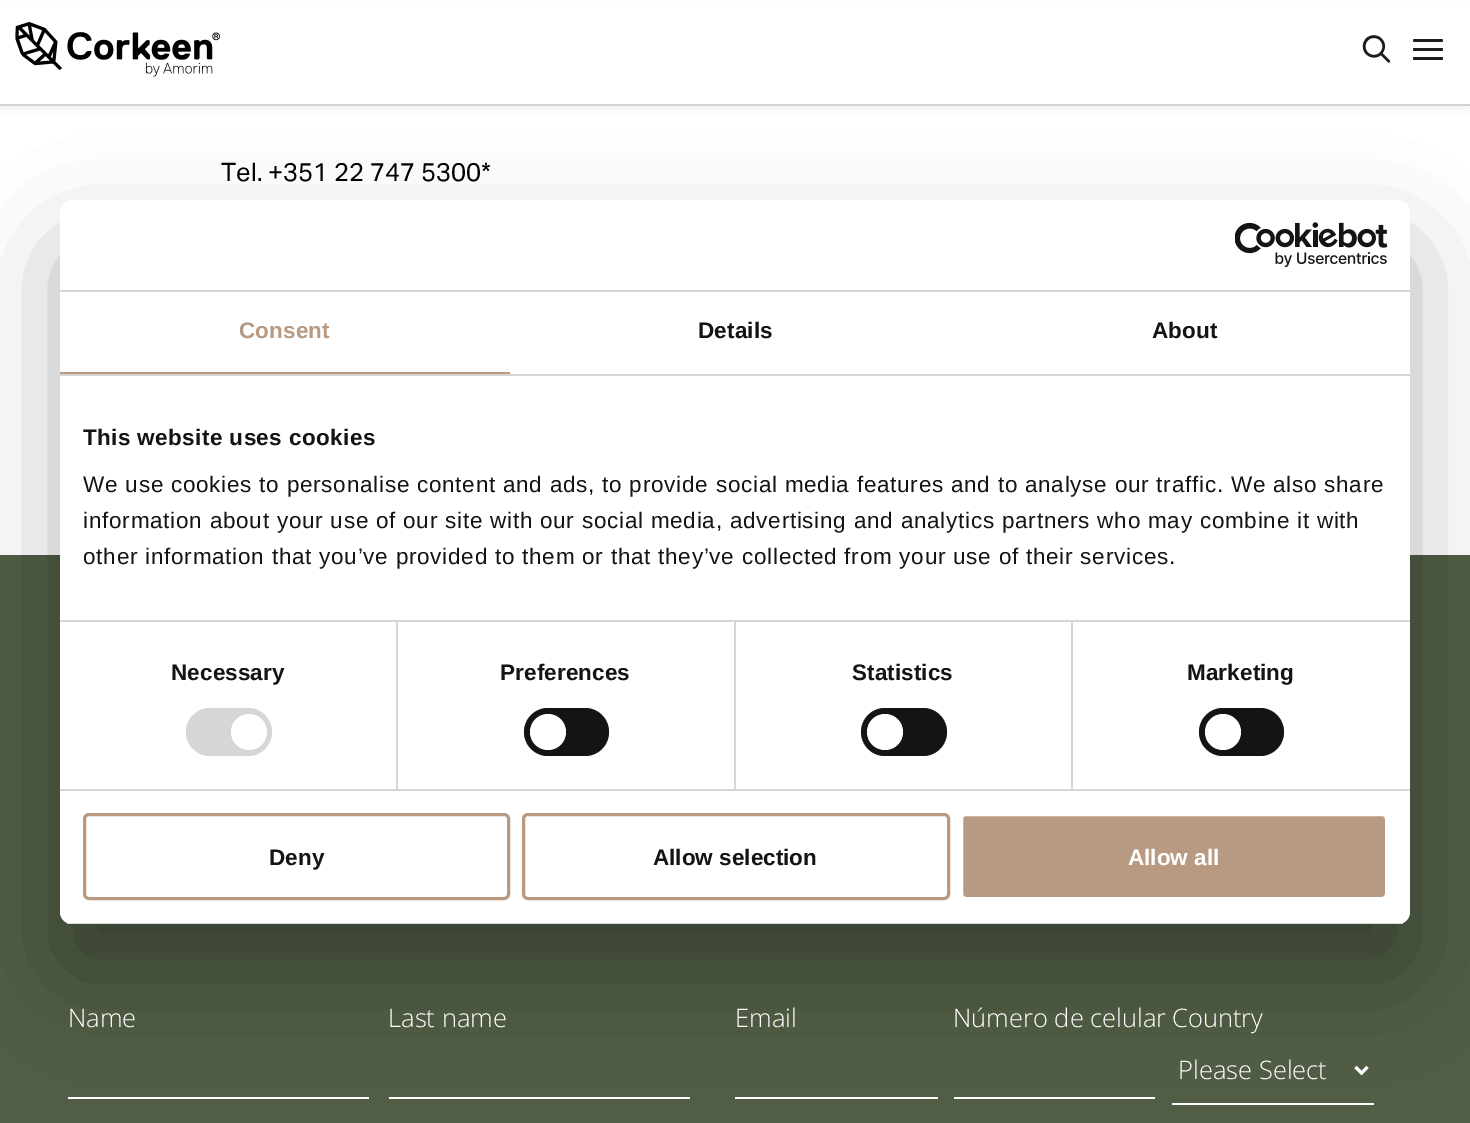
%!PS
<< /PageSize [1470 1123] /PageUsesTransparency true >> setpagedevice
/mt/moveto load def
/li/lineto load def
/fl/fill load def
/st/stroke load def
/gs/gsave load def
/gr/grestore load def
/lw/setlinewidth load def
/co { dup -16 bitshift 255 div exch dup -8 bitshift 255 and 255 div exch 255 and 255 div setrgbcolor } def
/fn { [ exch dup neg 0 0 3 -1 roll 0 0 ] selectfont } def
/tx { co fn moveto show } def
/bx { co rectfill } def
/al { dup .setfillconstantalpha .setstrokeconstantalpha } def
/ci { newpath 0 360 arc closepath } def
/rr { 5 dict begin { /r /h /w /y /x } { exch def } forall
  x r add y moveto x w add y 2 copy h add r arct x w add y h add x 1 index r arct
  x y h add x y r arct x y 2 copy exch w add exch r arct closepath end } def
/sh { 12 dict begin { /a /b /q /h /w /y /x } { exch def } forall gsave /was 0 def
  9 -2 -9 { dup b mul 4 div /e exch def 1 sub .425 mul 2.718 exch exp 1 add a .99 .min exch div /now exch def
    1 1 now sub 1 was sub div sub al /was now def
    w h .min e 2 mul add 0 gt { x e sub y e sub w e 2 mul add h e 2 mul add
      q e add b .6 mul add w h .min 2 div e add .min 0 .max rr fill } if } for grestore end } def
/im { 5 dict begin { /h /w /y /x /name } { exch def } forall
  gsave x y translate w h scale
  w h 8 [w 0 0 h 0 0] name (r) file false 3 colorimage grestore end } def
0 .pushpdf14devicefilter
0 1123 translate 1 -1 scale
4 setmiterlimit
0 0 1470 1123 16#FFFFFF bx
16#000000 co
0 5 1470 105 0 3 .05 sh
0 2 1470 102 16#FFFFFF bx
0 104 1470 2 16#D2D2D2 bx
(media/1.raw) 15 22 205 55 im
(media/2.raw) 1362 35 29 28 im
16#1D1D1D co
1413 39 30 3 1.5 rr fl
1413 48 30 3 1.5 rr fl
1413 57 30 3 1.5 rr fl
0 555 1470 568 16#515D45 bx
68 1097 301 2 16#FFFFFF bx
389 1097 301 2 16#FFFFFF bx
735 1097 203 2 16#FFFFFF bx
954 1097 201 2 16#FFFFFF bx
1172 1103 202 2 16#FFFFFF bx
3 lw
1355.5 1067 mt 1361.5 1073 li 1367.5 1067 li st
16#000000 co
60 248 1350 724 12 51 .3 sh
16#FFFFFF co
60 200 1350 724 12 rr fl
60 290 1350 2 16#D6D6D6 bx
(media/3.raw) 1235 222 153 45 im
60 374 1350 2 16#D6D6D6 bx
60 372 450 2 16#B79A81 bx
396 621 2 168 16#D6D6D6 bx
734 621 2 168 16#D6D6D6 bx
1071 621 2 168 16#D6D6D6 bx
60 620 1350 2 16#D6D6D6 bx
60 789 1350 2 16#D6D6D6 bx
186 708 86 48 24 rr fl
16#FFFFFF co
249 732 18 ci fl
16#141414 co
524 708 85 48 24 rr fl
16#FFFFFF co
548 732 18 ci fl
16#141414 co
861 708 86 48 24 rr fl
16#FFFFFF co
885 732 18 ci fl
16#141414 co
1199 708 85 48 24 rr fl
16#FFFFFF co
1223 732 18 ci fl
gs
60 200 1350 724 12 rr clip newpath
60 923 1350 1 16#D6D6D6 bx
gr
16#B79A81 co
84.5 814.5 424 84 4.5 rr st
523.5 814.5 425 84 4.5 rr st
961.5 814.5 425 84 4.5 rr gs fl gr
16#FFFFFF co
st
(Tel. +351 22 747 5300*) 221 181 /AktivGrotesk-Regular 25.5 16#000000 tx
(Name) 68 1027 /OpenSans-Light 25.5 16#FFFFFF tx
(Last name) 388 1027 /OpenSans-Light 25.5 16#FFFFFF tx
(Email) 735 1027 /OpenSans-Light 25.5 16#FFFFFF tx
(Número de celular) 953 1027 /OpenSans-Light 25.5 16#FFFFFF tx
(Country) 1172 1027 /OpenSans-Light 25.5 16#FFFFFF tx
(Please Select) 1178 1079 /OpenSans-Light 25.5 16#FFFFFF tx
/LiberationSans-Bold 22.5 fn
16#B79A81 co
239 338 mt .1 0 (Consent) ashow
16#141414 co
698 338 mt .1 0 (Details) ashow
1152 338 mt .1 0 (About) ashow
83 445 mt .4 0 (This website uses cookies) ashow
/LiberationSans-Regular 22.5 fn
83 492 mt .75 0 (We use cookies to personalise content and ads, to provide social media features and to analyse our traffic. We also share) ashow
83 528 mt .75 0 (information about your use of our site with our social media, advertising and analytics partners who may combine it with) ashow
83 564 mt .75 0 (other information that you’ve provided to them or that they’ve collected from your use of their services.) ashow
/LiberationSans-Bold 22.5 fn
171 680 mt .1 0 (Necessary) ashow
500 680 mt .1 0 (Preferences) ashow
852 680 mt .1 0 (Statistics) ashow
1187 680 mt .1 0 (Marketing) ashow
(Deny) 269 865 /LiberationSans-Bold 22.5 16#141414 tx
(Allow selection) 653 865 /LiberationSans-Bold 22.5 16#141414 tx
(Allow all) 1128 865 /LiberationSans-Bold 22.5 16#FFFFFF tx
.poppdf14devicefilter showpage
